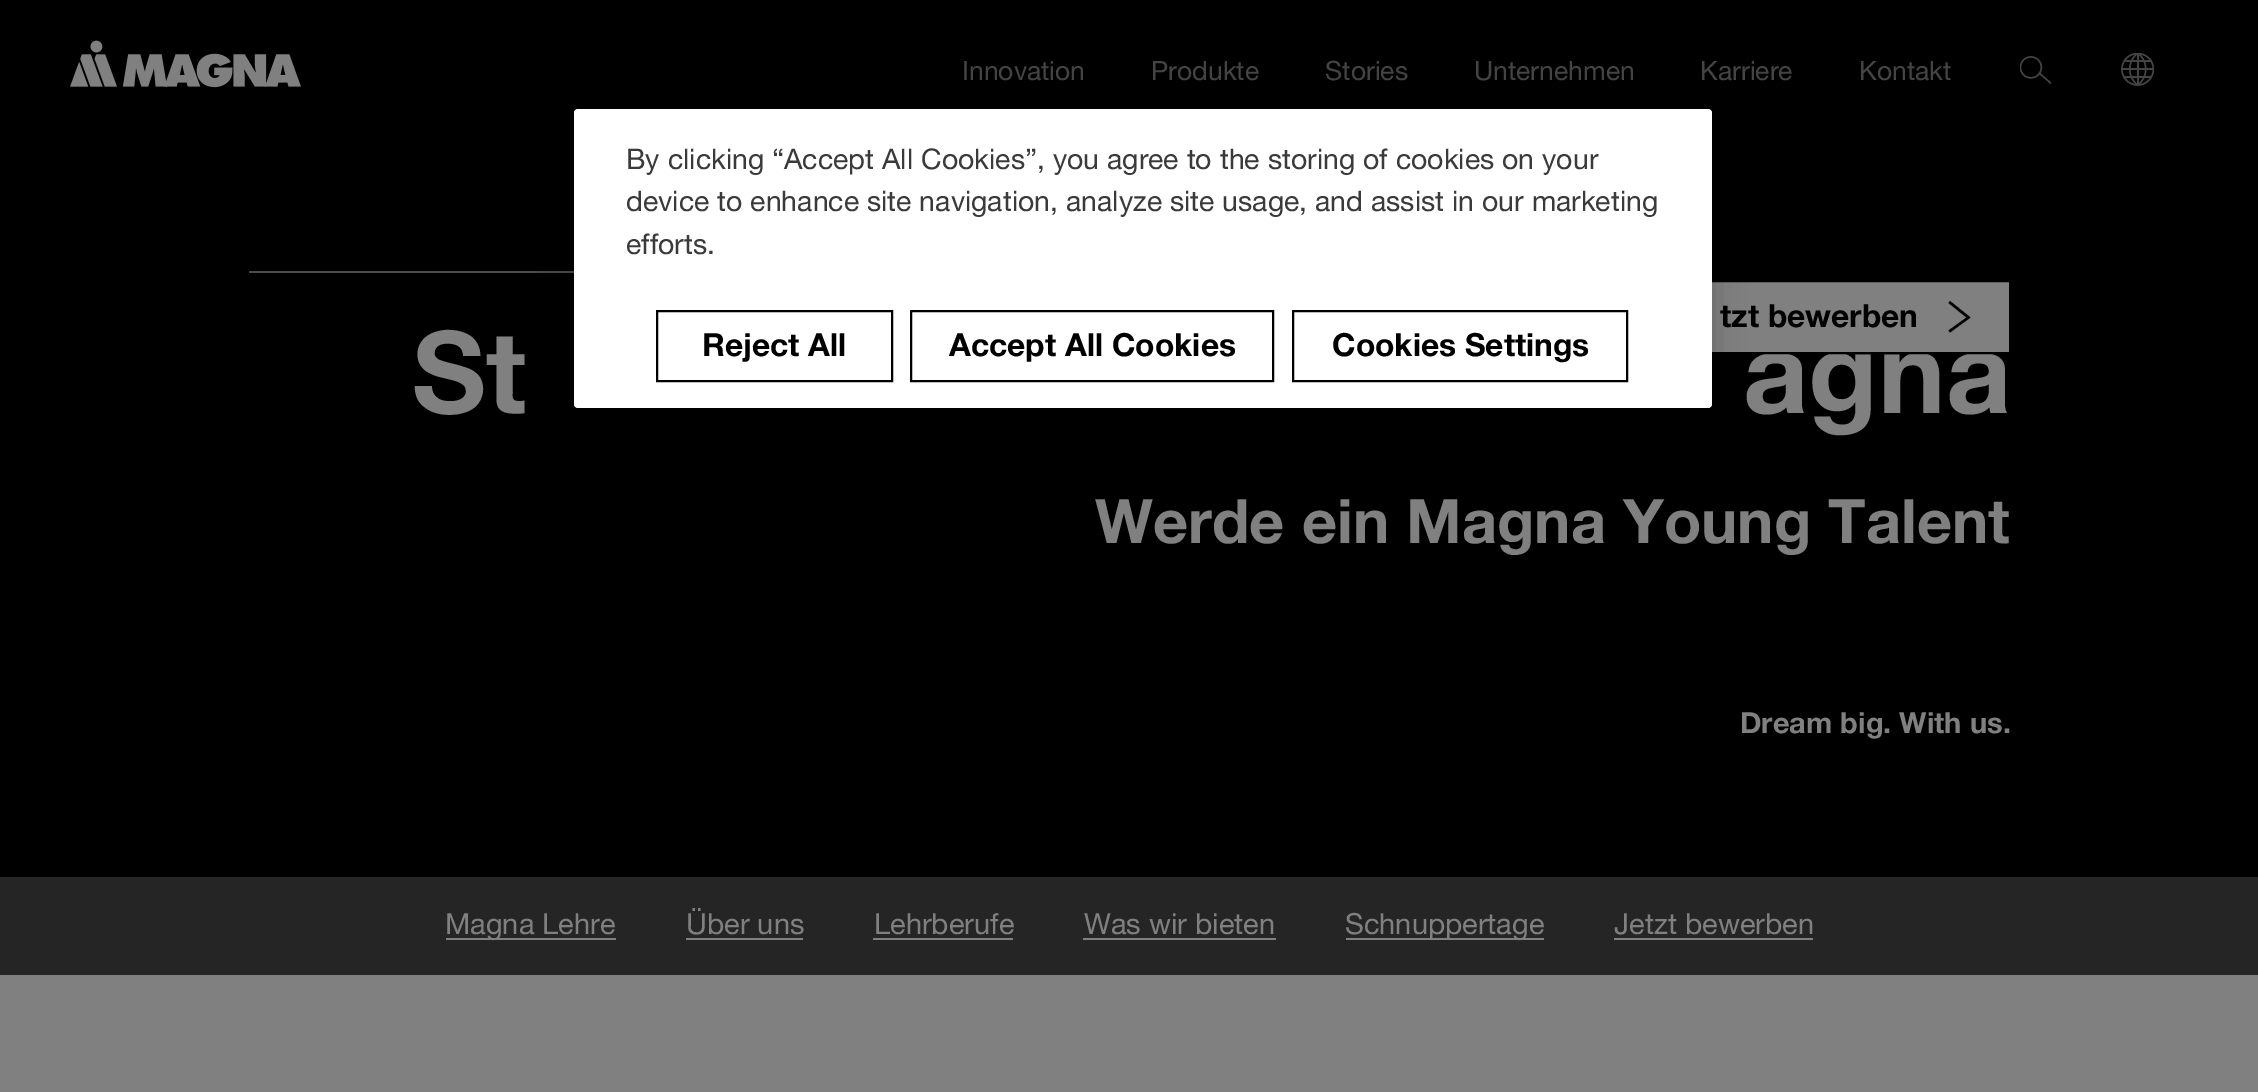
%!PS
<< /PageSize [2258 1092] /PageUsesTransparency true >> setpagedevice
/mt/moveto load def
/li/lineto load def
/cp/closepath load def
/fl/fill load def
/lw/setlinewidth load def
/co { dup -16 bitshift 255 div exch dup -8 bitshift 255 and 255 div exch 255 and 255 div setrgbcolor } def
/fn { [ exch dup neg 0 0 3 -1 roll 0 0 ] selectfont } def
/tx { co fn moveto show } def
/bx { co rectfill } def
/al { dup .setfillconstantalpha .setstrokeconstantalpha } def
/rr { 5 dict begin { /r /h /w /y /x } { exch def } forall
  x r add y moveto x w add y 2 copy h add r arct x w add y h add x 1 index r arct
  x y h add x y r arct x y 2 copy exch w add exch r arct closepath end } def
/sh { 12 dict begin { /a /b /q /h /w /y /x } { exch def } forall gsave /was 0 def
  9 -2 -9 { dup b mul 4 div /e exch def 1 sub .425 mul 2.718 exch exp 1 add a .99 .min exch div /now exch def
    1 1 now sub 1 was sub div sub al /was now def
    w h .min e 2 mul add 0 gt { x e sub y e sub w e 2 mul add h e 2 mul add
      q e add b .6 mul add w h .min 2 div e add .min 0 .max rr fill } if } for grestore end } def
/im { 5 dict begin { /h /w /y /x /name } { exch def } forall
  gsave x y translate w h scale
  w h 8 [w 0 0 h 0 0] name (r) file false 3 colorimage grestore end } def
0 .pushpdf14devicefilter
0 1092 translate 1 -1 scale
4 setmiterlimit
0 0 2258 1092 16#808080 bx
0 0 2258 877 16#000000 bx
(media/1.raw) 70 40 231 48 im
(media/2.raw) 2020 56 31 28 im
(media/3.raw) 2121 53 33 33 im
1712 282 297 70 16#808080 bx
249 271 325 2 16#4B4B4B bx
0 877 2258 98 16#252525 bx
446 938 170 2 16#808080 bx
686 938 117 2 16#808080 bx
873 938 140 2 16#808080 bx
1083 938 193 2 16#808080 bx
1346 938 198 2 16#808080 bx
1614 938 199 2 16#808080 bx
(Innovation) 962 80 /HelveticaNeue-Regular 26.5 16#444444 tx
(Produkte) 1151 80 /HelveticaNeue-Regular 26.5 16#444444 tx
(Stories) 1325 80 /HelveticaNeue-Regular 26.5 16#444444 tx
(Unternehmen) 1474 80 /HelveticaNeue-Regular 26.5 16#444444 tx
(Karriere) 1700 80 /HelveticaNeue-Regular 26.5 16#444444 tx
(Kontakt) 1859 80 /HelveticaNeue-Regular 26.5 16#444444 tx
(St) 412 413 /HelveticaNeue-Bold 114 16#808080 tx
(agna) 1743 413 /HelveticaNeue-Bold 114 16#808080 tx
16#000000 co
2 lw
1646 281 364 72 rectstroke
574 109 1138 299 4 16 .2 sh
16#FFFFFF co
574 109 1138 299 4 rr fl
16#000000 co
1293 311 334 70 rectstroke
(Cookies Settings) 1332 356 /HelveticaNeue-Bold 31.75 16#000000 tx
911 311 362 70 rectstroke
(Accept All Cookies) 949 356 /HelveticaNeue-Bold 31.75 16#000000 tx
657 311 235 70 rectstroke
(Reject All) 702 356 /HelveticaNeue-Bold 31.75 16#000000 tx
(efforts.) 626 254 /HelveticaNeue-Regular 28.45 16#3A3A3A tx
(device to enhance site navigation, analyze site usage, and assist in our marketing) 626 211 /HelveticaNeue-Regular 28.45 16#3A3A3A tx
(By clicking “Accept All Cookies”, you agree to the storing of cookies on your) 626 169 /HelveticaNeue-Regular 28.45 16#3A3A3A tx
16#000000 co
1950 332.5 mt 1948.5 330.5 li 1966.5 317.5 li 1948.5 303 li 1950 301 li 1970.5 317.5 li cp fl
(tzt bewerben) 1720 327 /HelveticaNeue-Bold 31.75 16#000000 tx
(Werde ein Magna Young Talent) 1095 543 /HelveticaNeue-Bold 61.3 16#808080 tx
(Dream big. With us.) 1740 733 /HelveticaNeue-Bold 29 16#808080 tx
(Magna Lehre) 445 934 /HelveticaNeue-Regular 29 16#808080 tx
(Über uns) 686 934 /HelveticaNeue-Regular 29 16#808080 tx
(Lehrberufe) 874 934 /HelveticaNeue-Regular 29 16#808080 tx
(Was wir bieten) 1084 934 /HelveticaNeue-Regular 29 16#808080 tx
(Schnuppertage) 1345 934 /HelveticaNeue-Regular 29 16#808080 tx
(Jetzt bewerben) 1614 934 /HelveticaNeue-Regular 29 16#808080 tx
.poppdf14devicefilter showpage
